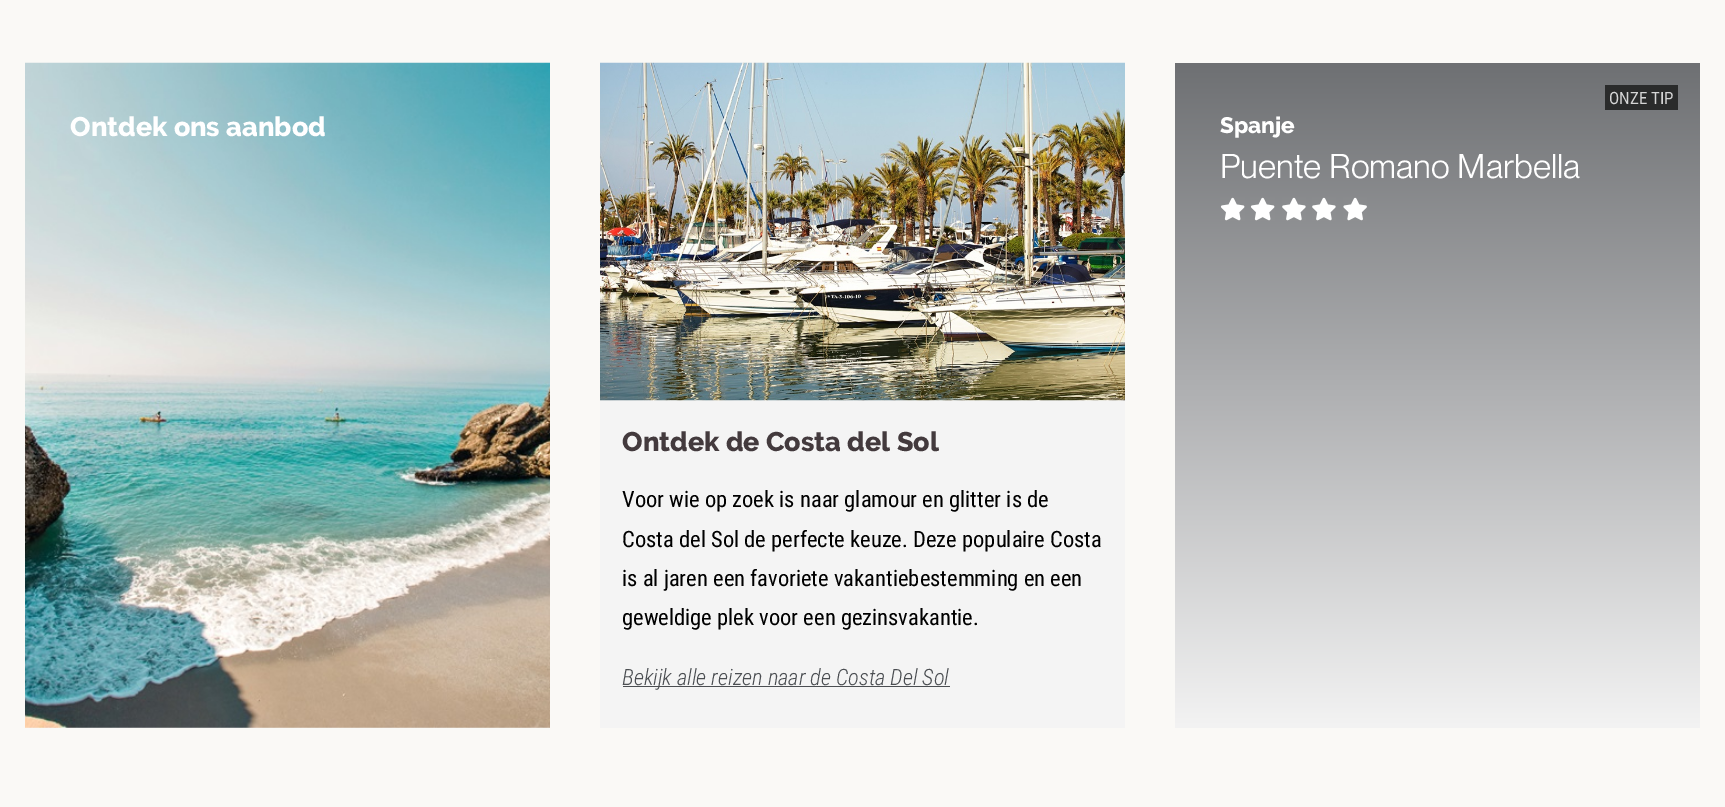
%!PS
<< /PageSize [1725 807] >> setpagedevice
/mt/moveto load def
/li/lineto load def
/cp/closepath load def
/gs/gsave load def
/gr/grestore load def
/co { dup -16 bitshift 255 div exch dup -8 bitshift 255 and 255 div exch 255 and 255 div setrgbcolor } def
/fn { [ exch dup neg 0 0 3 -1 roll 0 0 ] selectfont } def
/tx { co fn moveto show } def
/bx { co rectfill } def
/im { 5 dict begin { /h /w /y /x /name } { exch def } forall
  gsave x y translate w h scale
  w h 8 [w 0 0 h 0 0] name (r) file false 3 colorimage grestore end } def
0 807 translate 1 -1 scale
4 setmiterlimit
0 0 1725 807 16#FAF9F6 bx
(media/1.raw) 25 62 525 666 im
gs 1175 63 mt 1700 63 li 1700 728 li 1175 728 li cp clip newpath
<< /ShadingType 2 /ColorSpace /DeviceRGB /Coords [1438 728 1438 63] /Extend [true true] /Function << /FunctionType 2 /Domain [0 1] /C0 [.953 .953 .953] /C1 [.431 .439 .451] /N 1 >> >> shfill gr
gs 1605 85 mt 1678 85 li 1678 110 li 1605 110 li cp clip newpath
<< /ShadingType 2 /ColorSpace /DeviceRGB /Coords [1438 728 1438 63] /Extend [true true] /Function << /FunctionType 2 /Domain [0 1] /C0 [.267 .267 .267] /C1 [.161 .165 .165] /N 1 >> >> shfill gr
(media/2.raw) 1220 197 25 24 im
(media/2.raw) 1250 197 25 24 im
(media/3.raw) 1282 197 24 24 im
(media/3.raw) 1312 197 24 24 im
(media/4.raw) 1343 197 24 24 im
600 400 525 328 16#F4F4F4 bx
(media/5.raw) 600 62 525 339 im
623 686 327 1 16#4B4E52 bx
(Ontdek ons aanbod) 70 136 /Raleway-ExtraBold 27 16#FFFFFF tx
(ONZE TIP) 1609 104 /RobotoCondensed-Regular 17 16#D5D5D5 tx
(Spanje) 1220 133 /Raleway-ExtraBold 22.5 16#FFFFFF tx
(Puente Romano Marbella) 1220 178 /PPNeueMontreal-Regular 33.75 16#FFFFFF tx
(Ontdek de Costa del Sol) 622 451 /Raleway-ExtraBold 27 16#433A3D tx
(Voor wie op zoek is naar glamour en glitter is de) 622 507 /RobotoCondensed-Regular 22.5 16#000000 tx
(Costa del Sol de perfecte keuze. Deze populaire Costa) 622 547 /RobotoCondensed-Regular 22.5 16#000000 tx
(is al jaren een favoriete vakantiebestemming en een) 622 586 /RobotoCondensed-Regular 22.5 16#000000 tx
(geweldige plek voor een gezinsvakantie.) 622 625 /RobotoCondensed-Regular 22.5 16#000000 tx
(Bekijk alle reizen naar de Costa Del Sol) 622 685 /RobotoCondensed-LightItalic 22.5 16#4B4E52 tx
showpage
